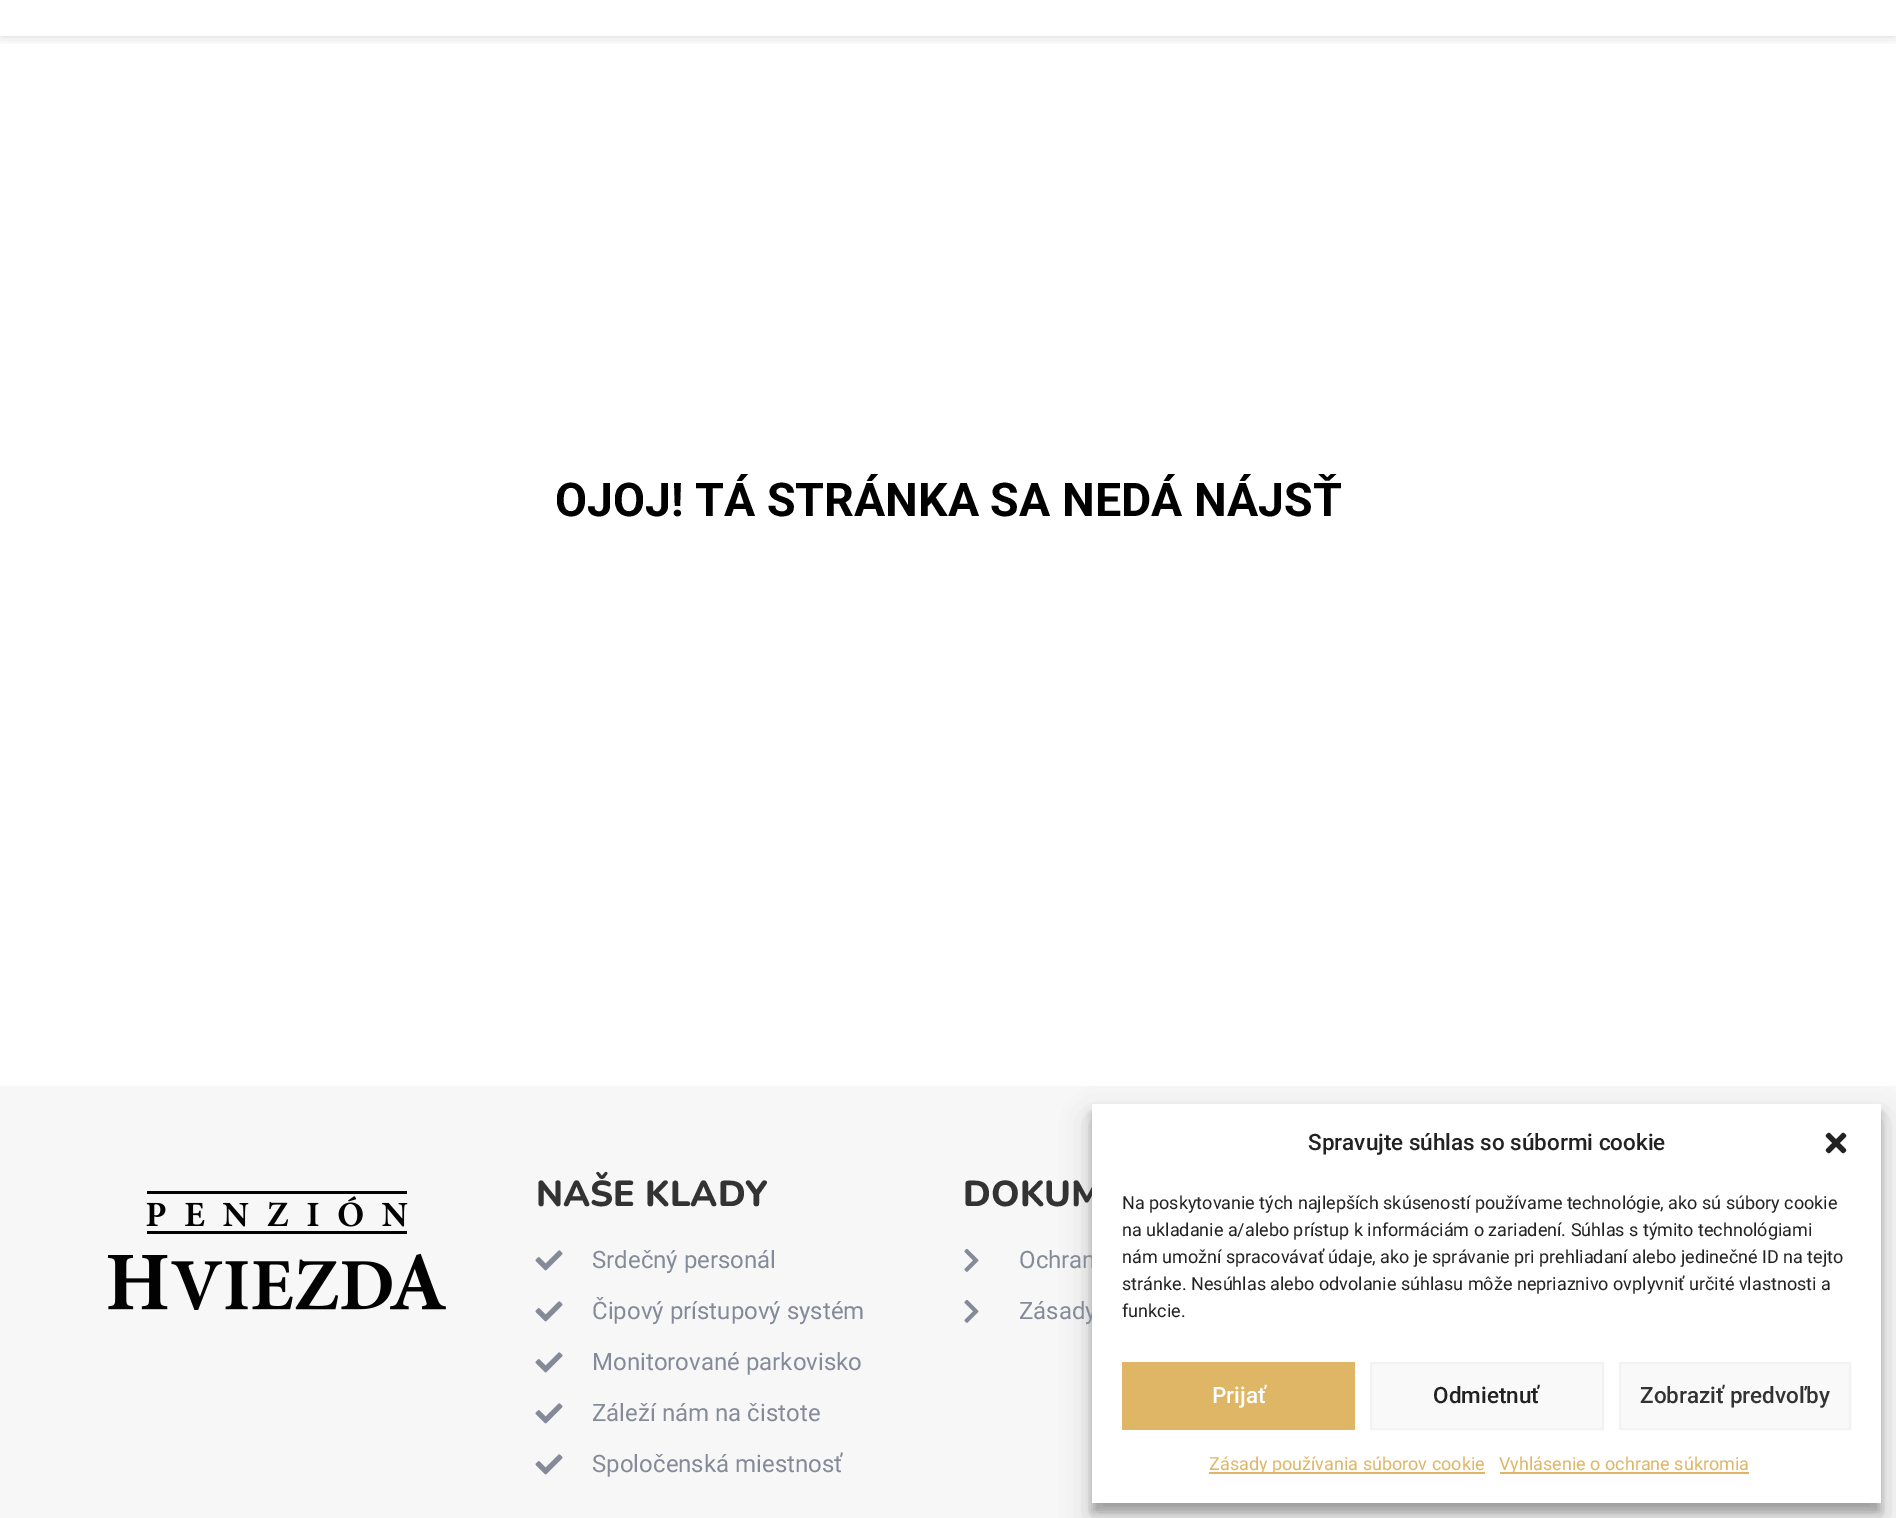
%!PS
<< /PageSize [1896 1518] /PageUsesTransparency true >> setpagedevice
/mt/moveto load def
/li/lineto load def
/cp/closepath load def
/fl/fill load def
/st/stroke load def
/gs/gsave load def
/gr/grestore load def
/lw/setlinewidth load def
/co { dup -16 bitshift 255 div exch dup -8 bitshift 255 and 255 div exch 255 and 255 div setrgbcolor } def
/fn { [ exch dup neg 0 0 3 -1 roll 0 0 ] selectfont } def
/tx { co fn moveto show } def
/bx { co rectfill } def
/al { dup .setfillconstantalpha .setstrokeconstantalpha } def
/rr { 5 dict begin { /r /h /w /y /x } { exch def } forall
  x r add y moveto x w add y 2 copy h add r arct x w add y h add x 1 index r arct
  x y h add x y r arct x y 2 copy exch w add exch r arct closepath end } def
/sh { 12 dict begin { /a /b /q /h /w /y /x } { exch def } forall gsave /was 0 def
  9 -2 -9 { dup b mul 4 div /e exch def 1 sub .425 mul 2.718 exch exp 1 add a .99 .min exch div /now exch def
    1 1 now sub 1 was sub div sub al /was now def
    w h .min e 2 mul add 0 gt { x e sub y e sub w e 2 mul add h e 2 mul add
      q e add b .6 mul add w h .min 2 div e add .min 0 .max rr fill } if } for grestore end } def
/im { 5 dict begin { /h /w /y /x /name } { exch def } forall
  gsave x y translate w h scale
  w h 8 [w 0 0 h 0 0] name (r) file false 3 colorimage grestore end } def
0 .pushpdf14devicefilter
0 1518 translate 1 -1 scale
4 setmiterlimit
0 0 1896 1518 16#FFFFFF bx
gs
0 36 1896 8 rectclip
16#000000 co
0 -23 1896 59 0 7.5 .15 sh
gr
0 1086 1896 432 16#F7F7F7 bx
(media/1.raw) 108 1191 338 119 im
(media/2.raw) 535 1250 28 21 im
(media/2.raw) 535 1301 28 21 im
(media/2.raw) 535 1352 28 21 im
(media/2.raw) 535 1403 28 21 im
(media/2.raw) 535 1454 28 21 im
(media/3.raw) 964 1248 15 24 im
(media/3.raw) 964 1299 15 24 im
16#000000 co
1092 1113 789 399 0 4.5 .23 sh
1092 1119 789 399 0 15 .19 sh
(OJOJ! TÁ STRÁNKA SA NEDÁ NÁJSŤ) 555 516 /Roboto-Bold 46.5 16#000000 tx
(NAŠE KLADY) 536 1206 /Nunito-ExtraBold 36 16#333333 tx
(Srdečný personál) 592 1268 /Roboto-Regular 24 16#858A99 tx
(Čipový prístupový systém) 592 1319 /Roboto-Regular 24 16#858A99 tx
(Monitorované parkovisko) 592 1370 /Roboto-Regular 24 16#858A99 tx
(Záleží nám na čistote) 592 1421 /Roboto-Regular 24 16#858A99 tx
(Spoločenská miestnosť) 592 1472 /Roboto-Regular 24 16#858A99 tx
(DOKUM) 963 1206 /Nunito-ExtraBold 36 16#333333 tx
(Ochran) 1019 1268 /Roboto-Regular 24 16#858A99 tx
(Zásady) 1019 1319 /Roboto-Regular 24 16#858A99 tx
1092 1104 789 399 16#FFFFFF bx
(Spravujte súhlas so súbormi cookie) 1308 1150 /Roboto-Medium 22.5 16#222222 tx
(media/4.raw) 1825 1132 22 22 im
(Na poskytovanie tých najlepších skúseností používame technológie, ako sú súbory cookie) 1122 1209 /Roboto-Regular 18 16#222222 tx
(na ukladanie a/alebo prístup k informáciám o zariadení. Súhlas s týmito technológiami) 1122 1236 /Roboto-Regular 18 16#222222 tx
(nám umožní spracovávať údaje, ako je správanie pri prehliadaní alebo jedinečné ID na tejto) 1122 1263 /Roboto-Regular 18 16#222222 tx
(stránke. Nesúhlas alebo odvolanie súhlasu môže nepriaznivo ovplyvniť určité vlastnosti a) 1122 1290 /Roboto-Regular 18 16#222222 tx
(funkcie.) 1122 1317 /Roboto-Regular 18 16#222222 tx
1122 1362 233 68 16#DEB666 bx
(Prijať) 1212 1403 /Roboto-Medium 22.5 16#FFFFFF tx
16#F9F9F9 co
1371 1363 mt 1603 1363 li 1603 1429 li 1371 1429 li cp gs fl gr
16#F2F2F2 co
2 lw
st
(Odmietnuť) 1433 1403 /Roboto-Medium 22.5 16#222222 tx
16#F9F9F9 co
1620 1363 mt 1850 1363 li 1850 1429 li 1620 1429 li cp gs fl gr
16#F2F2F2 co
st
(Zobraziť predvoľby) 1640 1403 /Roboto-Medium 22.5 16#333333 tx
1209 1472 276 2 16#DEB666 bx
(Zásady používania súborov cookie) 1209 1470 /Roboto-Regular 18 16#DEB666 tx
1500 1472 249 2 16#DEB666 bx
(Vyhlásenie o ochrane súkromia) 1499 1470 /Roboto-Regular 18 16#DEB666 tx
.poppdf14devicefilter showpage
